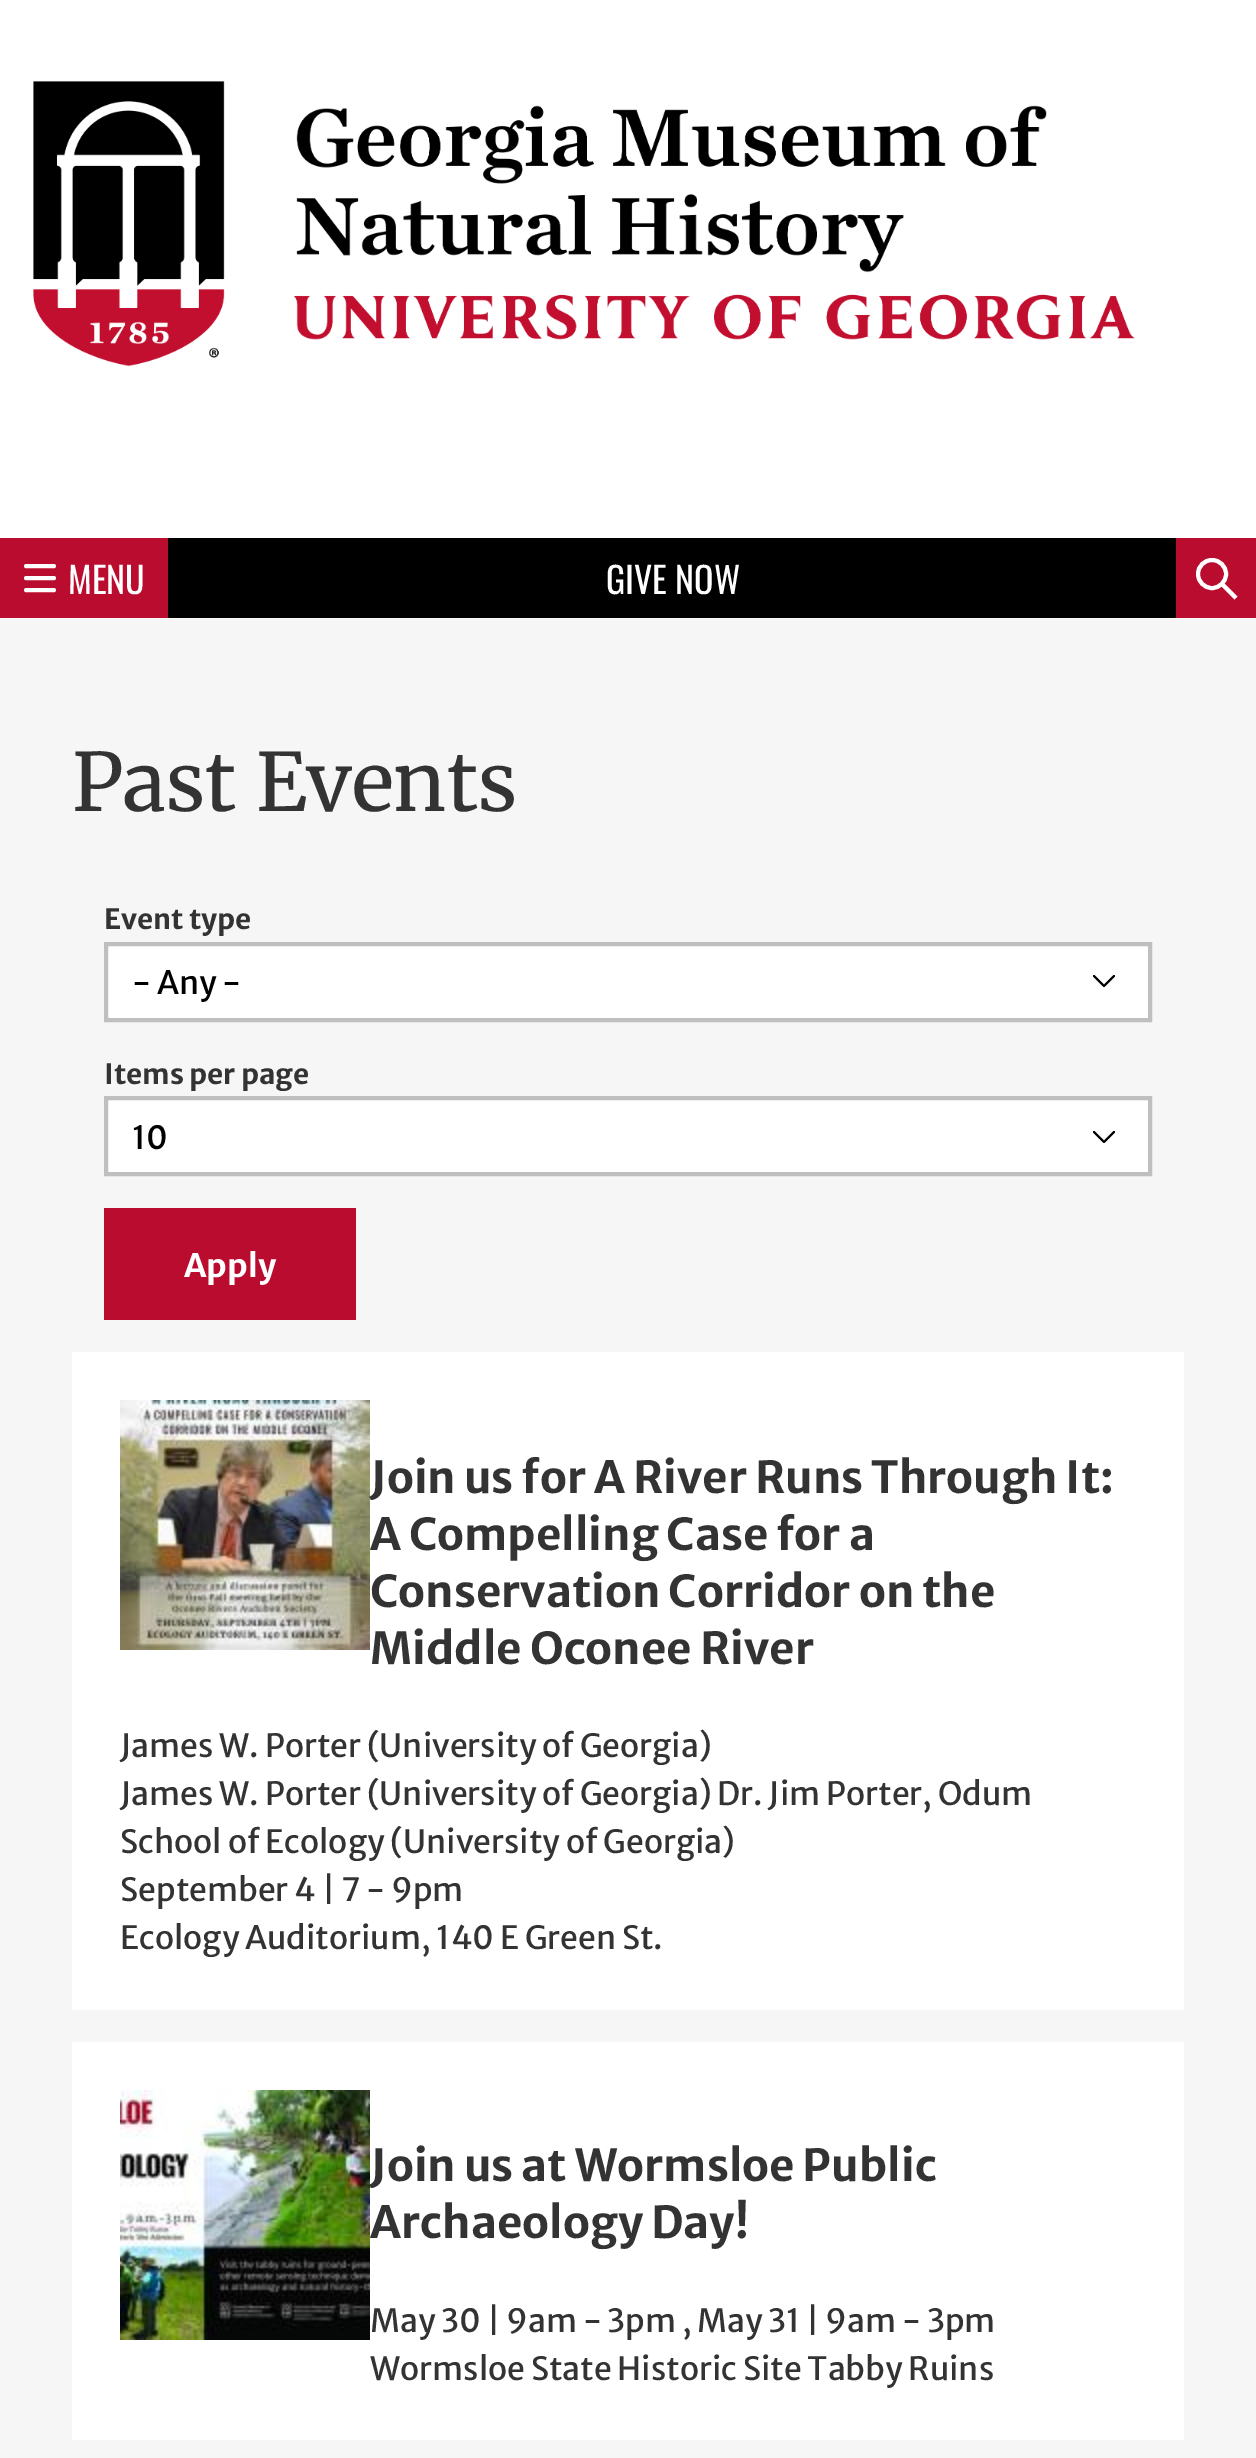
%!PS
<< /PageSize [1256 2458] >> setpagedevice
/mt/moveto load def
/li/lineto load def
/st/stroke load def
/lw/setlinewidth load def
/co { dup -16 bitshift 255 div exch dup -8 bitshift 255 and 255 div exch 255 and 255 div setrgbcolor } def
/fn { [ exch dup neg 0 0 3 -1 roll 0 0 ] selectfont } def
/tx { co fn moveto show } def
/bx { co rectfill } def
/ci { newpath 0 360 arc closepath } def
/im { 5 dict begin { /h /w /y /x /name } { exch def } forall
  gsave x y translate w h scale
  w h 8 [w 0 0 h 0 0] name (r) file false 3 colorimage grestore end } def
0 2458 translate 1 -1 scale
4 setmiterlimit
0 0 1256 2458 16#FFFFFF bx
(media/1.raw) 33 81 1102 286 im
168 538 1008 80 16#000000 bx
0 538 168 80 16#BA0C2F bx
16#FFFFFF co
4 lw
1 setlinecap
26 566 mt 54 566 li 26 578 mt 54 578 li 26 590 mt 54 590 li st
1176 538 80 80 16#BA0C2F bx
16#FFFFFF co
0 setlinecap
1212 574 14 ci st
1222 584 mt 1236 598 li st
0 618 1256 1840 16#F6F6F6 bx
108 946 1040 72 16#FFFFFF bx
16#000000 co
2 lw
1 setlinecap
1 setlinejoin
1094 976 mt 1104 986 li 1114 976 li st
16#BFBFBF co
4 lw
0 setlinecap
0 setlinejoin
106 944 1044 76 rectstroke
108 1100 1040 72 16#FFFFFF bx
16#000000 co
2 lw
1 setlinecap
1 setlinejoin
1094 1132 mt 1104 1142 li 1114 1132 li st
16#BFBFBF co
4 lw
0 setlinecap
0 setlinejoin
106 1098 1044 76 rectstroke
104 1208 252 112 16#BA0C2F bx
72 1352 1112 658 16#FFFFFF bx
(media/2.raw) 120 1400 250 250 im
72 2042 1112 398 16#FFFFFF bx
(media/3.raw) 120 2090 250 250 im
(MENU) 68 594 /Oswald-Regular 36 16#FFFFFF tx
(GIVE NOW) 606 594 /Oswald-Regular 36 16#FFFFFF tx
(Past Events) 72 811 /Merriweather-Light 80 16#333333 tx
(Event type) 104 929 /MerriweatherSans-Bold 28 16#333333 tx
(- Any -) 132 994 /MerriweatherSans-Regular 32 16#000000 tx
(Items per page) 104 1084 /MerriweatherSans-Bold 28 16#333333 tx
(10) 132 1149 /MerriweatherSans-Regular 32 16#000000 tx
(Apply) 184 1277 /MerriweatherSans-Bold 32 16#FFFFFF tx
(Join us for A River Runs Through It:) 370 1493 /MerriweatherSans-Bold 44 16#333333 tx
(A Compelling Case for a) 370 1550 /MerriweatherSans-Bold 44 16#333333 tx
(Conservation Corridor on the) 370 1607 /MerriweatherSans-Bold 44 16#333333 tx
(Middle Oconee River) 370 1664 /MerriweatherSans-Bold 44 16#333333 tx
(James W. Porter \(University of Georgia\)) 120 1757 /MerriweatherSans-Regular 32 16#333333 tx
(James W. Porter \(University of Georgia\) Dr. Jim Porter, Odum) 120 1805 /MerriweatherSans-Regular 32 16#333333 tx
(School of Ecology \(University of Georgia\)) 120 1853 /MerriweatherSans-Regular 32 16#333333 tx
(September 4 | 7 - 9pm) 120 1901 /MerriweatherSans-Regular 32 16#333333 tx
(Ecology Auditorium, 140 E Green St.) 120 1949 /MerriweatherSans-Regular 32 16#333333 tx
(Join us at Wormsloe Public) 370 2181 /MerriweatherSans-Bold 44 16#333333 tx
(Archaeology Day!) 370 2238 /MerriweatherSans-Bold 44 16#333333 tx
(May 30 | 9am - 3pm , May 31 | 9am - 3pm) 370 2332 /MerriweatherSans-Regular 32 16#333333 tx
(Wormsloe State Historic Site Tabby Ruins) 370 2380 /MerriweatherSans-Regular 32 16#333333 tx
showpage
